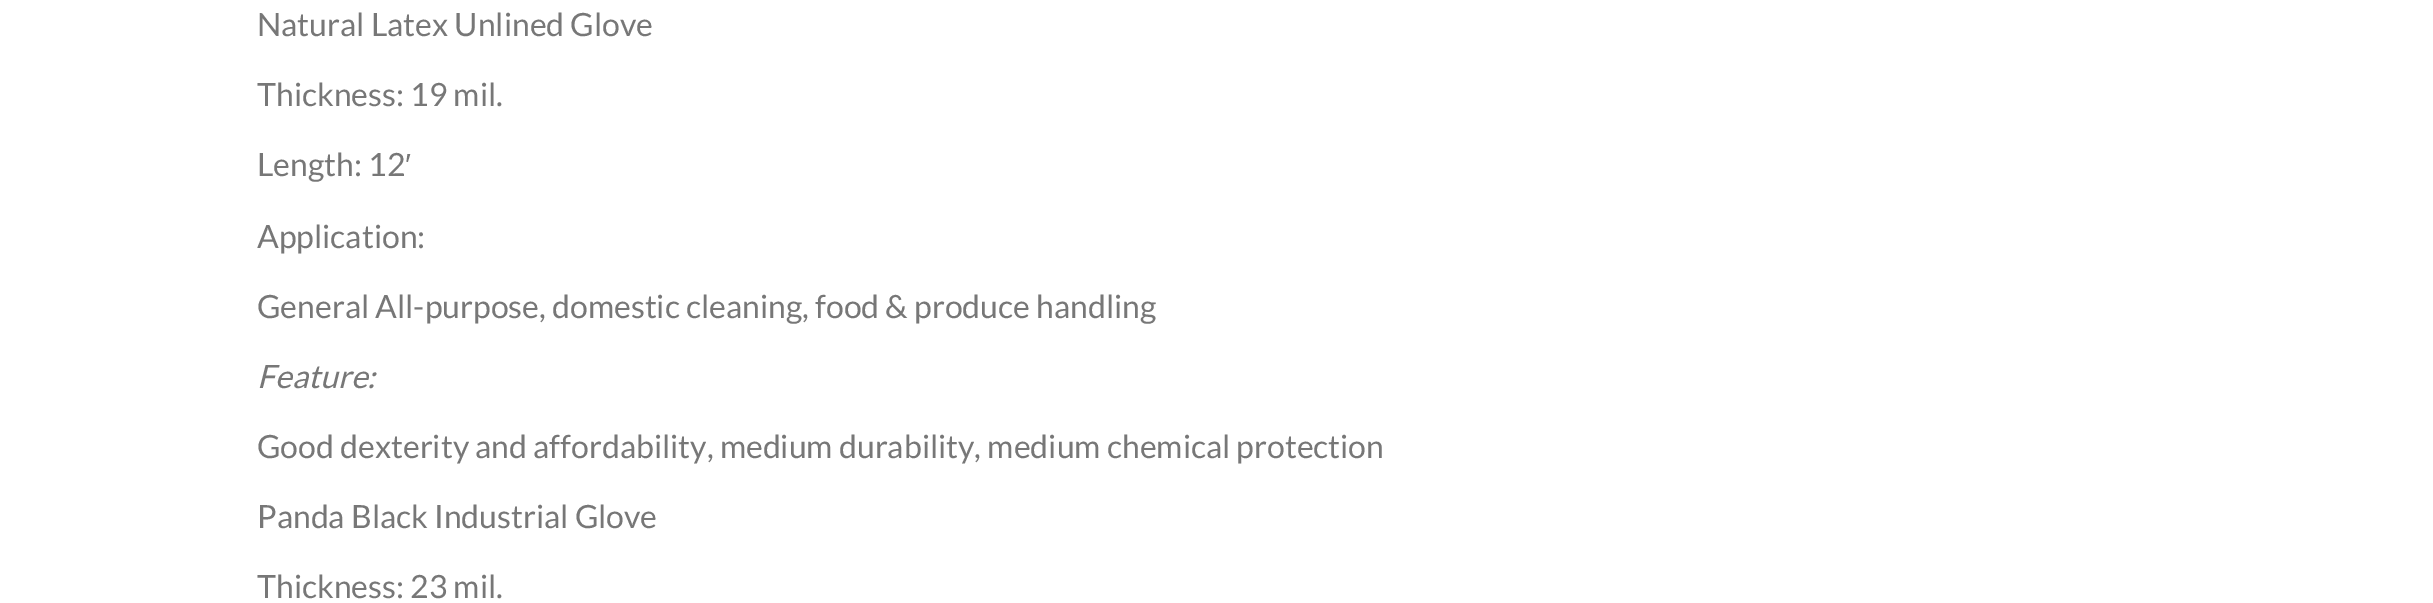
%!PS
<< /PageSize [2433 603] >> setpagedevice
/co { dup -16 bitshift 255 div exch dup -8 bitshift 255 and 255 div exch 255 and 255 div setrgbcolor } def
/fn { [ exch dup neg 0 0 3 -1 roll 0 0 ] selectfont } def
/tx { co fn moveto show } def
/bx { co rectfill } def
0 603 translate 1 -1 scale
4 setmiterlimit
0 0 2433 603 16#FFFFFF bx
(Natural Latex Unlined Glove) 257 36 /Lato-Regular 32 16#777777 tx
(Thickness: 19 mil.) 257 106 /Lato-Regular 32 16#777777 tx
(Length: 12) 257 176 /Lato-Regular 32 16#777777 tx
(′) 405 176 /LiberationSans-Regular 32 16#777777 tx
(Application:) 257 248 /Lato-Regular 32 16#777777 tx
(General All-purpose, domestic cleaning, food & produce handling) 257 318 /Lato-Regular 32 16#777777 tx
(Feature:) 257 388 /Lato-Italic 32 16#777777 tx
(Good dexterity and affordability, medium durability, medium chemical protection) 257 458 /Lato-Regular 32 16#777777 tx
(Panda Black Industrial Glove) 257 528 /Lato-Regular 32 16#777777 tx
(Thickness: 23 mil.) 257 598 /Lato-Regular 32 16#777777 tx
showpage
